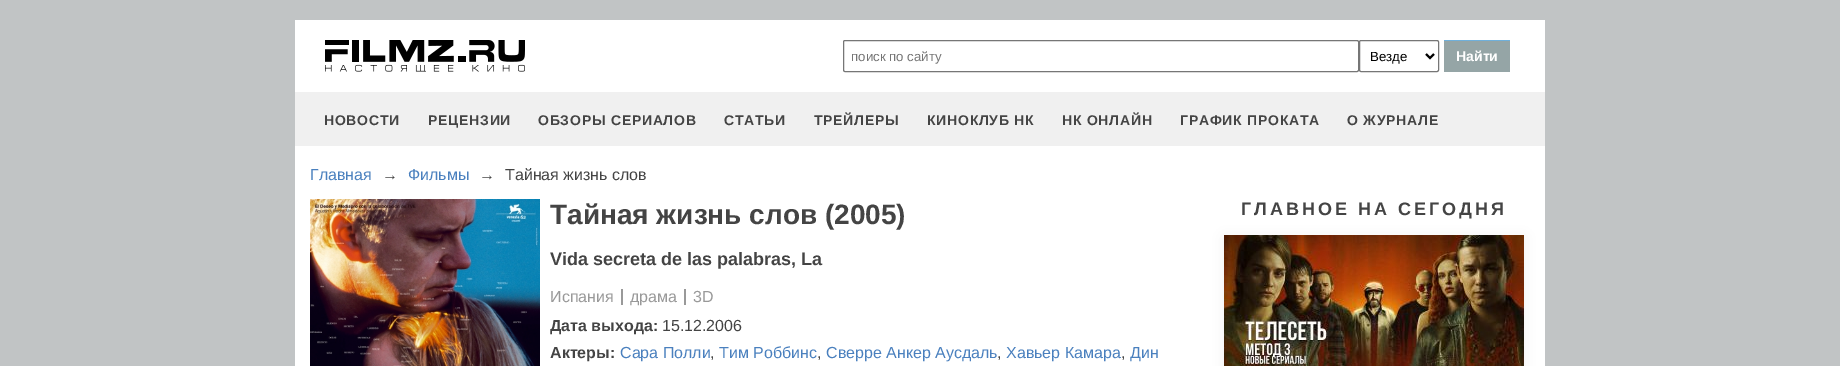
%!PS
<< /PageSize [1840 366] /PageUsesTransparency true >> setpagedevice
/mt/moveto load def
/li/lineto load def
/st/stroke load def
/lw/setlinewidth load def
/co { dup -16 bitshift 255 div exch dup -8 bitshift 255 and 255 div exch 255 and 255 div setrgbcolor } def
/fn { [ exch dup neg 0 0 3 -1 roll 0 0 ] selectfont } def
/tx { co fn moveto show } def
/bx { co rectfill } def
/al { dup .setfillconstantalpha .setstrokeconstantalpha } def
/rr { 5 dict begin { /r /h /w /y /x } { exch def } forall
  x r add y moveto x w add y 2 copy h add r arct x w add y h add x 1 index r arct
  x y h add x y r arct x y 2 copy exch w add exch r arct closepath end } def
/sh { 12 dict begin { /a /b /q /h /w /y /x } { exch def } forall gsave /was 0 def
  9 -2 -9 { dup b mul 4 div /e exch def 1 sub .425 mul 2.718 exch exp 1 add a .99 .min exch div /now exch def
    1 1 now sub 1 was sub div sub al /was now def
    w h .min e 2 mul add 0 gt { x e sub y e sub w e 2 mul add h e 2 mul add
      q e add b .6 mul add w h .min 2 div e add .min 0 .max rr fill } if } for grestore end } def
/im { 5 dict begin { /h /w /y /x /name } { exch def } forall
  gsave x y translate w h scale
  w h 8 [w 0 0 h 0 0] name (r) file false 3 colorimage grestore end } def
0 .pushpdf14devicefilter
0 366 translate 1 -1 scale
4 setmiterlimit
0 0 1840 366 16#C1C4C5 bx
295 20 1250 72 16#FFFFFF bx
(media/1.raw) 325 40 200 32 im
16#767676 co
843.5 40.5 515 31 1.5 rr st
1359.5 40.5 79 31 1.5 rr st
16#000000 co
2 lw
1426 54 mt 1430 58 li 1434 54 li st
1444 41 66 31 16#95A5A6 bx
1444 40 66 1 16#6FB0DB bx
295 92 1250 54 16#F0F0F0 bx
295 146 1250 220 16#FFFFFF bx
(media/2.raw) 310 199 230 167 im
621 289 2 16 16#999999 bx
684 289 2 16 16#999999 bx
16#000000 co
1224 237 300 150 0 7 .05 sh
(media/3.raw) 1224 235 300 131 im
(поиск по сайту) 851 61 /LiberationSans-Regular 13.25 16#757575 tx
(Везде) 1370 61 /LiberationSans-Regular 13.25 16#000000 tx
(Найти) 1456 61 /LiberationSans-Bold 14 16#FFFFFF tx
16#444444 co
324 125 mt .75 0 (НОВОСТИ) ashow
428 125 mt .75 0 (РЕЦЕНЗИИ) ashow
538 125 mt .75 0 (ОБЗОРЫ СЕРИАЛОВ) ashow
724 125 mt .75 0 (СТАТЬИ) ashow
814 125 mt .75 0 (ТРЕЙЛЕРЫ) ashow
927 125 mt .75 0 (КИНОКЛУБ НК) ashow
1062 125 mt .75 0 (НК ОНЛАЙН) ashow
1180 125 mt .75 0 (ГРАФИК ПРОКАТА) ashow
1347 125 mt .75 0 (О ЖУРНАЛЕ) ashow
(Главная) 310 180 /LiberationSans-Regular 16 16#4A80BE tx
(→) 382 180 /LiberationSans-Regular 16 16#444444 tx
(Фильмы) 408 180 /LiberationSans-Regular 16 16#4A80BE tx
(→) 479 180 /LiberationSans-Regular 16 16#444444 tx
(Тайная жизнь слов) 505 180 /LiberationSans-Regular 16 16#444444 tx
(Тайная жизнь слов \(2005\)) 550 224 /LiberationSans-Bold 28 16#444444 tx
(Vida secreta de las palabras, La) 550 265 /LiberationSans-Bold 18 16#444444 tx
(Испания) 550 302 /LiberationSans-Regular 16 16#999999 tx
(драма) 630 302 /LiberationSans-Regular 16 16#999999 tx
(3D) 693 302 /LiberationSans-Regular 16 16#999999 tx
(Дата выхода:) 550 331 /LiberationSans-Bold 16 16#444444 tx
(15.12.2006) 662 331 /LiberationSans-Regular 16 16#444444 tx
(Актеры:) 550 358 /LiberationSans-Bold 16 16#444444 tx
(Сара Полли) 620 358 /LiberationSans-Regular 16 16#4A80BE tx
(,) 710 358 /LiberationSans-Regular 16 16#444444 tx
(Тим Роббинс) 719 358 /LiberationSans-Regular 16 16#4A80BE tx
(,) 817 358 /LiberationSans-Regular 16 16#444444 tx
(Сверре Анкер Аусдаль) 826 358 /LiberationSans-Regular 16 16#4A80BE tx
(,) 997 358 /LiberationSans-Regular 16 16#444444 tx
(Хавьер Камара) 1006 358 /LiberationSans-Regular 16 16#4A80BE tx
(,) 1121 358 /LiberationSans-Regular 16 16#444444 tx
(Дин) 1130 358 /LiberationSans-Regular 16 16#4A80BE tx
/LiberationSans-Bold 18 fn
16#444444 co
1241 215 mt 3 0 (ГЛАВНОЕ НА СЕГОДНЯ) ashow
.poppdf14devicefilter showpage
